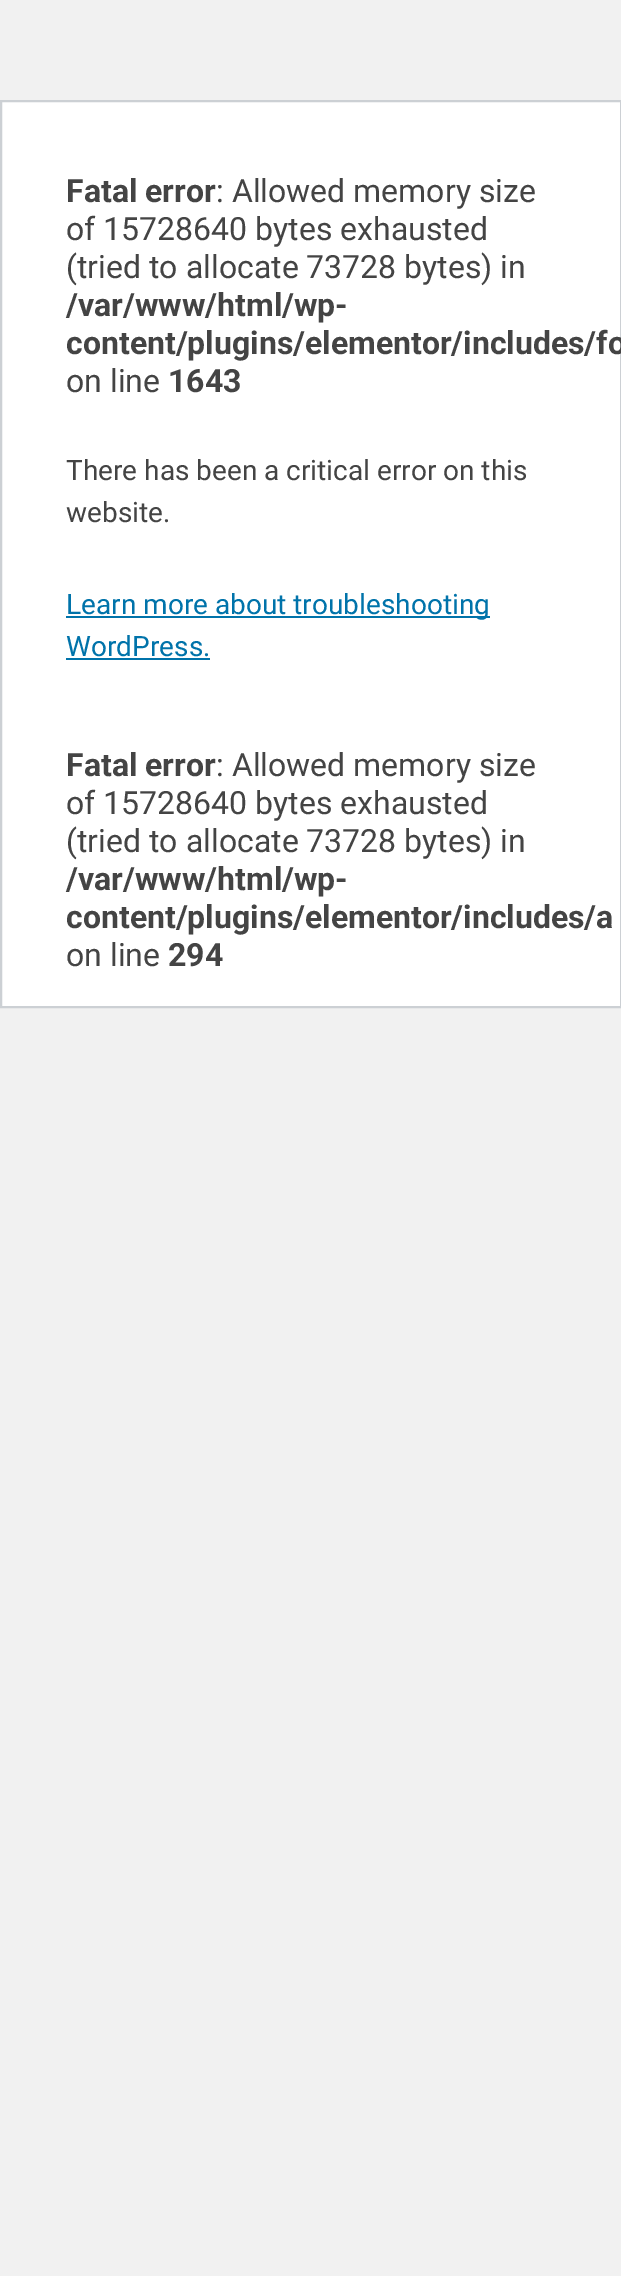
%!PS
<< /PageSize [621 2276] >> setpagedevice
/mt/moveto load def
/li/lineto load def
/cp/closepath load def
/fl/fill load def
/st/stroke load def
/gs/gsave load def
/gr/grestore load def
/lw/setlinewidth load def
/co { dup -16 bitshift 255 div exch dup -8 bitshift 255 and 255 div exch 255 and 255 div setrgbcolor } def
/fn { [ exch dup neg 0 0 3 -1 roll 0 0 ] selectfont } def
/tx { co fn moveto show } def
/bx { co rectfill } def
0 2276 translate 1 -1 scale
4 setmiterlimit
0 0 621 2276 16#F1F1F1 bx
16#FFFFFF co
1 101 mt 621 101 li 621 1007 li 1 1007 li cp gs fl gr
16#CCD0D4 co
2 lw
st
66 616 424 2 16#0073AA bx
66 658 144 2 16#0073AA bx
(Fatal error) 66 202 /Roboto-Bold 32 16#444444 tx
(: Allowed memory size) 216 202 /Roboto-Regular 32 16#444444 tx
(of 15728640 bytes exhausted) 66 240 /Roboto-Regular 32 16#444444 tx
(\(tried to allocate 73728 bytes\) in) 66 278 /Roboto-Regular 32 16#444444 tx
(/var/www/html/wp-) 66 316 /Roboto-Bold 32 16#444444 tx
(content/plugins/elementor/includes/fo) 66 354 /Roboto-Bold 32 16#444444 tx
(on line) 66 392 /Roboto-Regular 32 16#444444 tx
(1643) 168 392 /Roboto-Bold 32 16#444444 tx
(There has been a critical error on this) 66 480 /Roboto-Regular 28 16#444444 tx
(website.) 66 522 /Roboto-Regular 28 16#444444 tx
(Learn more about troubleshooting) 66 614 /Roboto-Regular 28 16#0073AA tx
(WordPress.) 66 656 /Roboto-Regular 28 16#0073AA tx
(Fatal error) 66 776 /Roboto-Bold 32 16#444444 tx
(: Allowed memory size) 216 776 /Roboto-Regular 32 16#444444 tx
(of 15728640 bytes exhausted) 66 814 /Roboto-Regular 32 16#444444 tx
(\(tried to allocate 73728 bytes\) in) 66 852 /Roboto-Regular 32 16#444444 tx
(/var/www/html/wp-) 66 890 /Roboto-Bold 32 16#444444 tx
(content/plugins/elementor/includes/a) 66 928 /Roboto-Bold 32 16#444444 tx
(on line) 66 966 /Roboto-Regular 32 16#444444 tx
(294) 168 966 /Roboto-Bold 32 16#444444 tx
showpage
